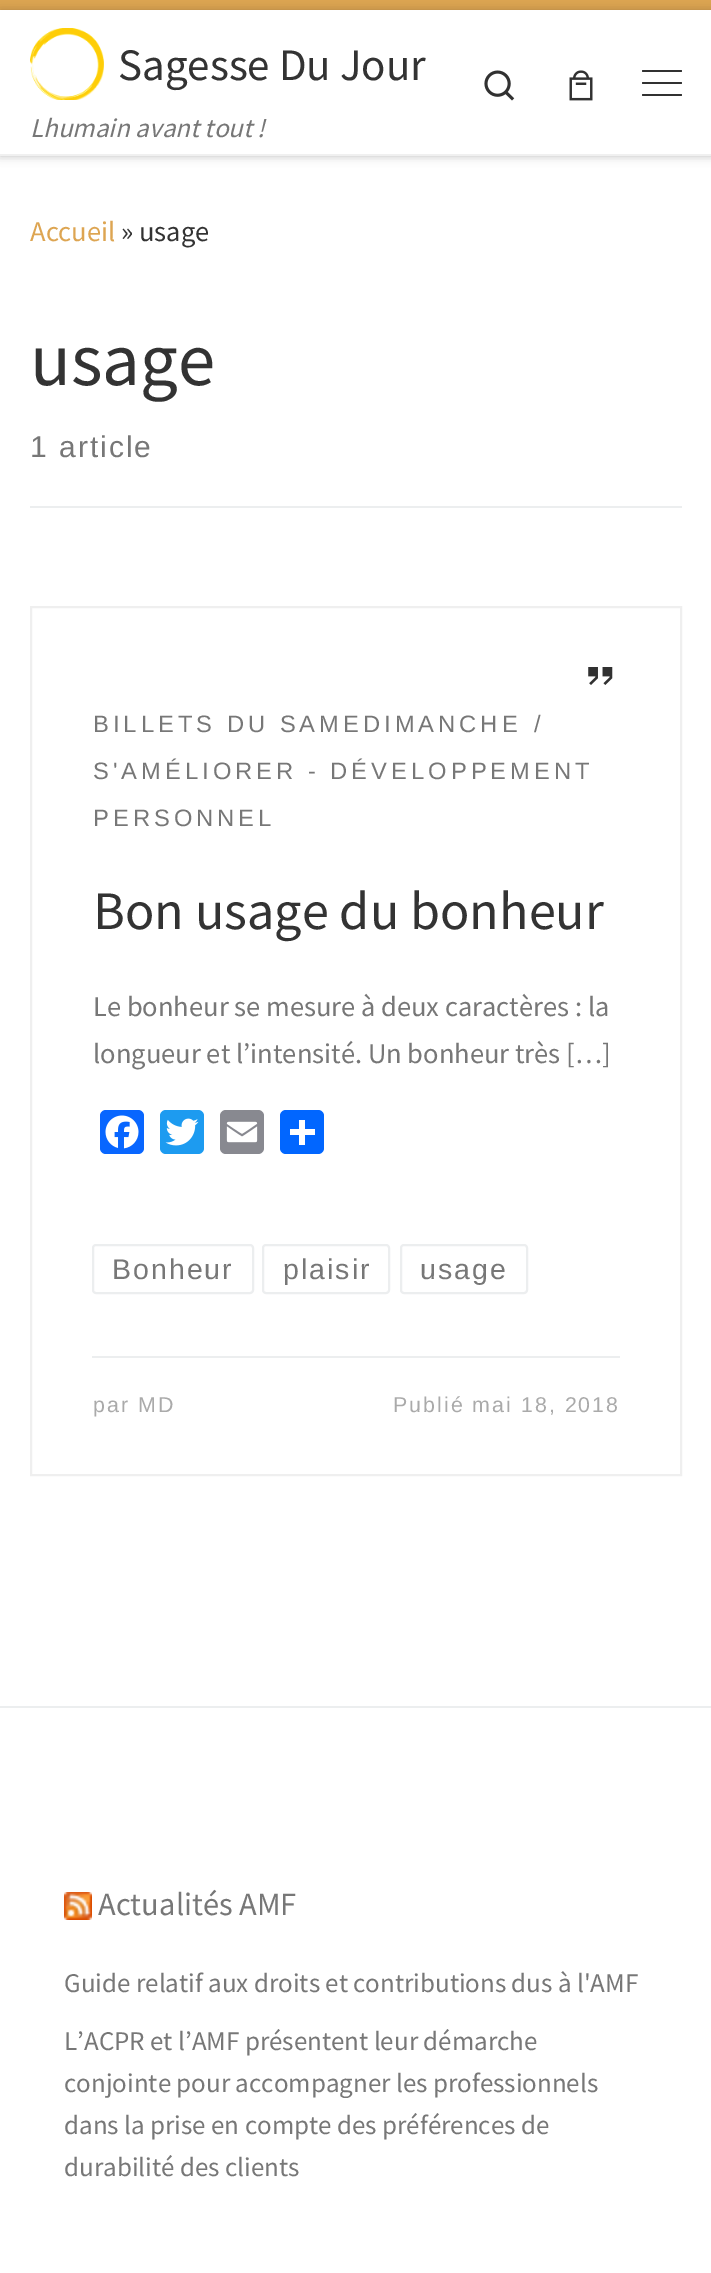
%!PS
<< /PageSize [711 2273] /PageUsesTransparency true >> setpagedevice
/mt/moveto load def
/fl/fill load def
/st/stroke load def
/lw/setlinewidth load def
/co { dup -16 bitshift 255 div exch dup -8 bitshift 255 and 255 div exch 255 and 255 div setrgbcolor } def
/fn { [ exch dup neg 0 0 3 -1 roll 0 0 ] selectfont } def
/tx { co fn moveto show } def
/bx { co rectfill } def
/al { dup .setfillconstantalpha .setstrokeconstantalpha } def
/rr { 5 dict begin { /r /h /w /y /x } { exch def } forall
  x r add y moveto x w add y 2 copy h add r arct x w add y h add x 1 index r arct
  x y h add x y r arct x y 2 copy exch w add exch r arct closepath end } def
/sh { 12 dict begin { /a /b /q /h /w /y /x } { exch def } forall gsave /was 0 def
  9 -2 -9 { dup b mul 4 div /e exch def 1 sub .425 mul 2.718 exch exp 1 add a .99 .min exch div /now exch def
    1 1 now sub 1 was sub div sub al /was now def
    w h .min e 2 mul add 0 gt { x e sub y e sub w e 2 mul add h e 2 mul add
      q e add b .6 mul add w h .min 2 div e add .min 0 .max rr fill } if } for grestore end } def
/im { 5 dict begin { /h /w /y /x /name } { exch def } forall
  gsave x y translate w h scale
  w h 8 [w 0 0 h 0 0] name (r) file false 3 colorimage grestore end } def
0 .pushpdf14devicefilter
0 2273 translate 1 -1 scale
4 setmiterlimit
0 0 711 2273 16#FFFFFF bx
16#666666 co
0 4 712 152 0 2 .08 sh
0 0 711 10 16#DDA552 bx
16#000000 co
0 10 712 146 0 5 .2 sh
0 10 711 144 16#FFFFFF bx
(media/1.raw) 30 28 74 72 im
(media/2.raw) 484 70 31 31 im
(media/3.raw) 569 70 24 31 im
16#313131 co
642 70 40 2 1 rr fl
642 82 40 2 1 rr fl
642 94 40 2 1 rr fl
0 154 711 2 16#F0F0F0 bx
30 506 652 2 16#ECEEEF bx
16#EFEFEF co
2 lw
31 607 650 868 rectstroke
(media/4.raw) 588 667 25 18 im
16#0866FF co
100 1110 44 44 6 rr fl
(media/5.raw) 105 1115 34 34 im
16#1D9BF0 co
160 1110 44 44 6 rr fl
(media/6.raw) 165 1118 34 28 im
16#888990 co
220 1110 44 44 6 rr fl
(media/7.raw) 226 1121 32 22 im
16#0166FF co
280 1110 44 44 6 rr fl
299 1120 6 25 16#FFFFFF bx
290 1129 25 6 16#FFFFFF bx
16#ECEEEF co
93 1245 160 48 3 rr st
263 1245 126 48 3 rr st
401 1245 126 48 3 rr st
92 1356 528 2 16#ECEEEF bx
0 1706 711 2 16#ECEEEF bx
(media/8.raw) 64 1892 28 28 im
(Sagesse Du Jour) 118 80 /SourceSansPro-Regular 45 16#333333 tx
(Lhumain avant tout !) 30 137 /SourceSansPro-Italic 27 16#777777 tx
(Accueil) 30 241 /SourceSansPro-Regular 28.5 16#DDA552 tx
(» usage) 121 241 /SourceSansPro-Regular 28.5 16#333333 tx
(usage) 30 385 /SourceSansPro-Regular 75 16#333333 tx
/LiberationSans-Regular 30 fn
16#777777 co
30 457 mt 2 0 (1 article) ashow
/LiberationSans-Regular 23.75 fn
93 732 mt 4 0 (BILLETS DU SAMEDIMANCHE) ashow
534 732 mt 4 0 (/) ashow
93 779 mt 4 0 (S'AMÉLIORER - DÉVELOPPEMENT) ashow
93 826 mt 4 0 (PERSONNEL) ashow
(Bon usage du bonheur) 93 929 /SourceSansPro-Regular 54.25 16#333333 tx
(Le bonheur se mesure à deux caractères : la) 93 1016 /SourceSansPro-Regular 28.5 16#777777 tx
(longueur et l’intensité. Un bonheur très […]) 93 1063 /SourceSansPro-Regular 28.5 16#777777 tx
/LiberationSans-Regular 28.5 fn
112 1279 mt 2 0 (Bonheur) ashow
283 1279 mt 2 0 (plaisir) ashow
420 1279 mt 2 0 (usage) ashow
/LiberationSans-Regular 21.4 fn
16#AAAAAA co
93 1412 mt 2 0 (par MD) ashow
393 1412 mt 2 0 (Publié mai 18, 2018) ashow
(Actualités AMF) 98 1915 /SourceSansPro-Regular 32.5 16#777777 tx
(Guide relatif aux droits et contributions dus à l'AMF) 64 1992 /SourceSansPro-Regular 27 16#777777 tx
(L’ACPR et l’AMF présentent leur démarche) 64 2050 /SourceSansPro-Regular 27 16#777777 tx
(conjointe pour accompagner les professionnels) 64 2092 /SourceSansPro-Regular 27 16#777777 tx
(dans la prise en compte des préférences de) 64 2134 /SourceSansPro-Regular 27 16#777777 tx
(durabilité des clients) 64 2176 /SourceSansPro-Regular 27 16#777777 tx
.poppdf14devicefilter showpage
